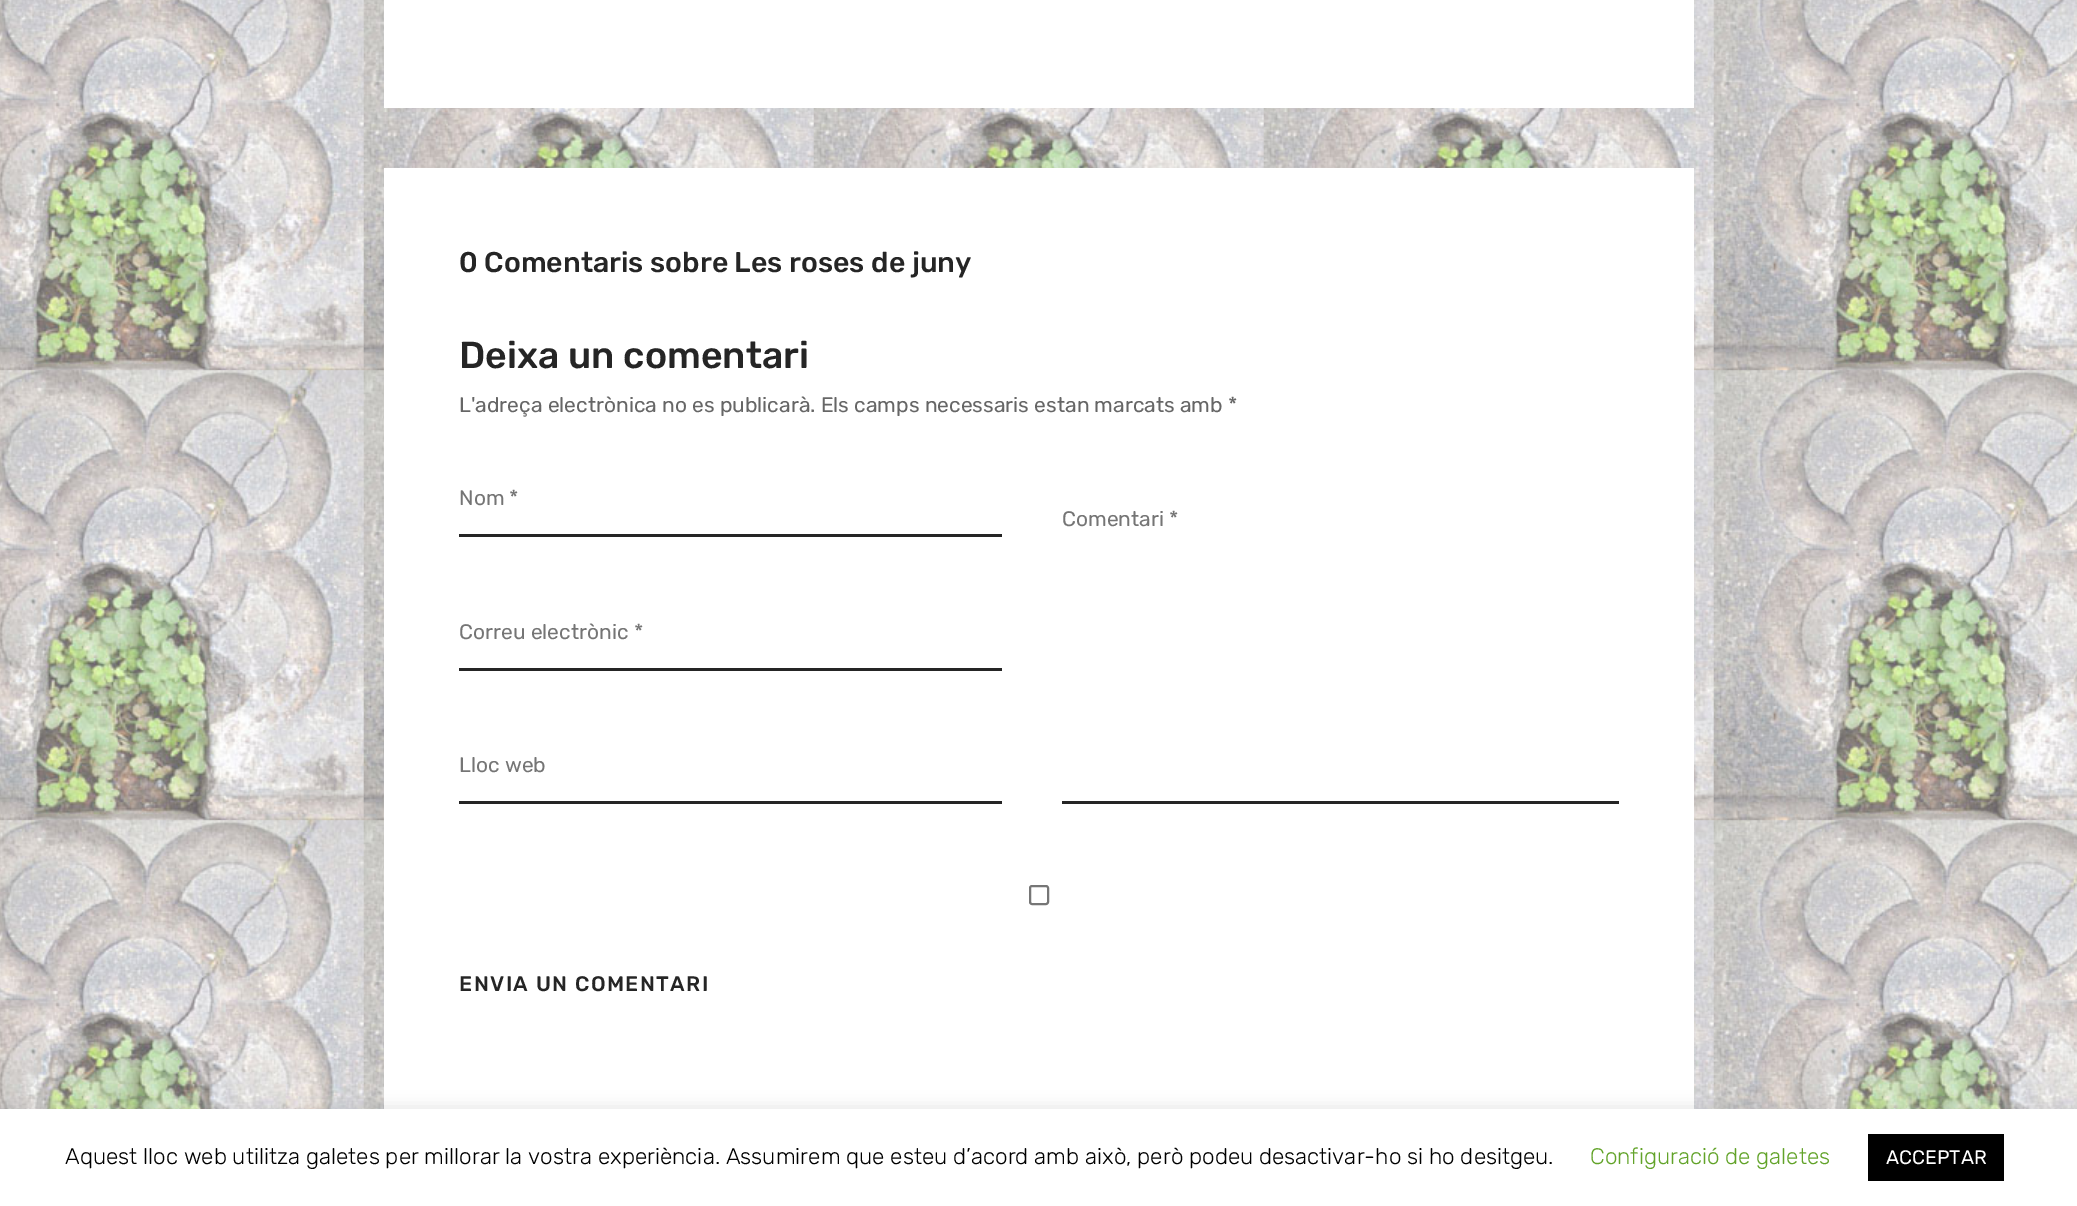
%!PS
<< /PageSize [2077 1206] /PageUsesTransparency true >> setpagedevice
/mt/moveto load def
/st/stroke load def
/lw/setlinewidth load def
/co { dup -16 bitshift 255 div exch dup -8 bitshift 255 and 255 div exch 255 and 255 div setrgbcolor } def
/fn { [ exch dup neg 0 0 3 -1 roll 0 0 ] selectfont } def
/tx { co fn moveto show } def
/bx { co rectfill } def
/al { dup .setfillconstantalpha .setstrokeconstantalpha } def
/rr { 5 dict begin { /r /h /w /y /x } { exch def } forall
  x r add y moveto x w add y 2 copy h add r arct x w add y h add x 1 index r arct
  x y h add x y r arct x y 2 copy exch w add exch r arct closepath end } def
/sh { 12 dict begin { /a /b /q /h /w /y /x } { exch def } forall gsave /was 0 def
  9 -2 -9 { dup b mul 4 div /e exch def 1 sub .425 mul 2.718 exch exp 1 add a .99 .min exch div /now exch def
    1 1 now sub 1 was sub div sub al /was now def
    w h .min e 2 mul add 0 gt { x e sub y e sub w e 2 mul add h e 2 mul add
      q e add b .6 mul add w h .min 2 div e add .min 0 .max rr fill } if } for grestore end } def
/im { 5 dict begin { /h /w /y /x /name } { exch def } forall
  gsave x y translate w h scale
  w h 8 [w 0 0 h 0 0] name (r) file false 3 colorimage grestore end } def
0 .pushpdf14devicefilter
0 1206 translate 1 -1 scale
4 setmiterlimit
0 0 2077 1206 16#FFFFFF bx
(media/1.raw) 0 0 2077 1109 im
384 0 1310 108 16#FFFFFF bx
384 168 1310 941 16#FFFFFF bx
459 534 543 3 16#252525 bx
1062 801 557 3 16#252525 bx
459 668 543 3 16#252525 bx
459 801 543 3 16#252525 bx
16#767676 co
2 lw
1030 886 18 18 2 rr st
16#ACABAB co
0 1107 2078 98 0 7.5 .3 sh
0 1109 2077 97 16#FFFFFF bx
1868 1134 136 47 16#000000 bx
(0 Comentaris sobre Les roses de juny) 459 272 /Rubik-Medium 28.5 16#252525 tx
(Deixa un comentari) 459 368 /Rubik-Medium 37.5 16#252525 tx
(L'adreça electrònica no es publicarà. Els camps necessaris estan marcats amb *) 459 412 /Rubik-Regular 21 16#666666 tx
(Nom *) 459 505 /Rubik-Regular 21 16#757575 tx
(Comentari *) 1062 526 /Rubik-Regular 21 16#757575 tx
(Correu electrònic *) 459 639 /Rubik-Regular 21 16#757575 tx
(Lloc web) 459 772 /Rubik-Regular 21 16#757575 tx
/Rubik-Medium 21 fn
16#252525 co
459 991 mt 1.5 0 (ENVIA UN COMENTARI) ashow
(Aquest lloc web utilitza galetes per millorar la vostra experiència. Assumirem que esteu d’acord amb això, però podeu desactivar-ho si ho desitgeu.) 65 1164 /Rubik-Light 22.5 16#000000 tx
(Configuració de galetes) 1590 1164 /Rubik-Light 22.5 16#62A329 tx
(ACCEPTAR) 1886 1164 /Rubik-Regular 19.5 16#FFFFFF tx
.poppdf14devicefilter showpage
